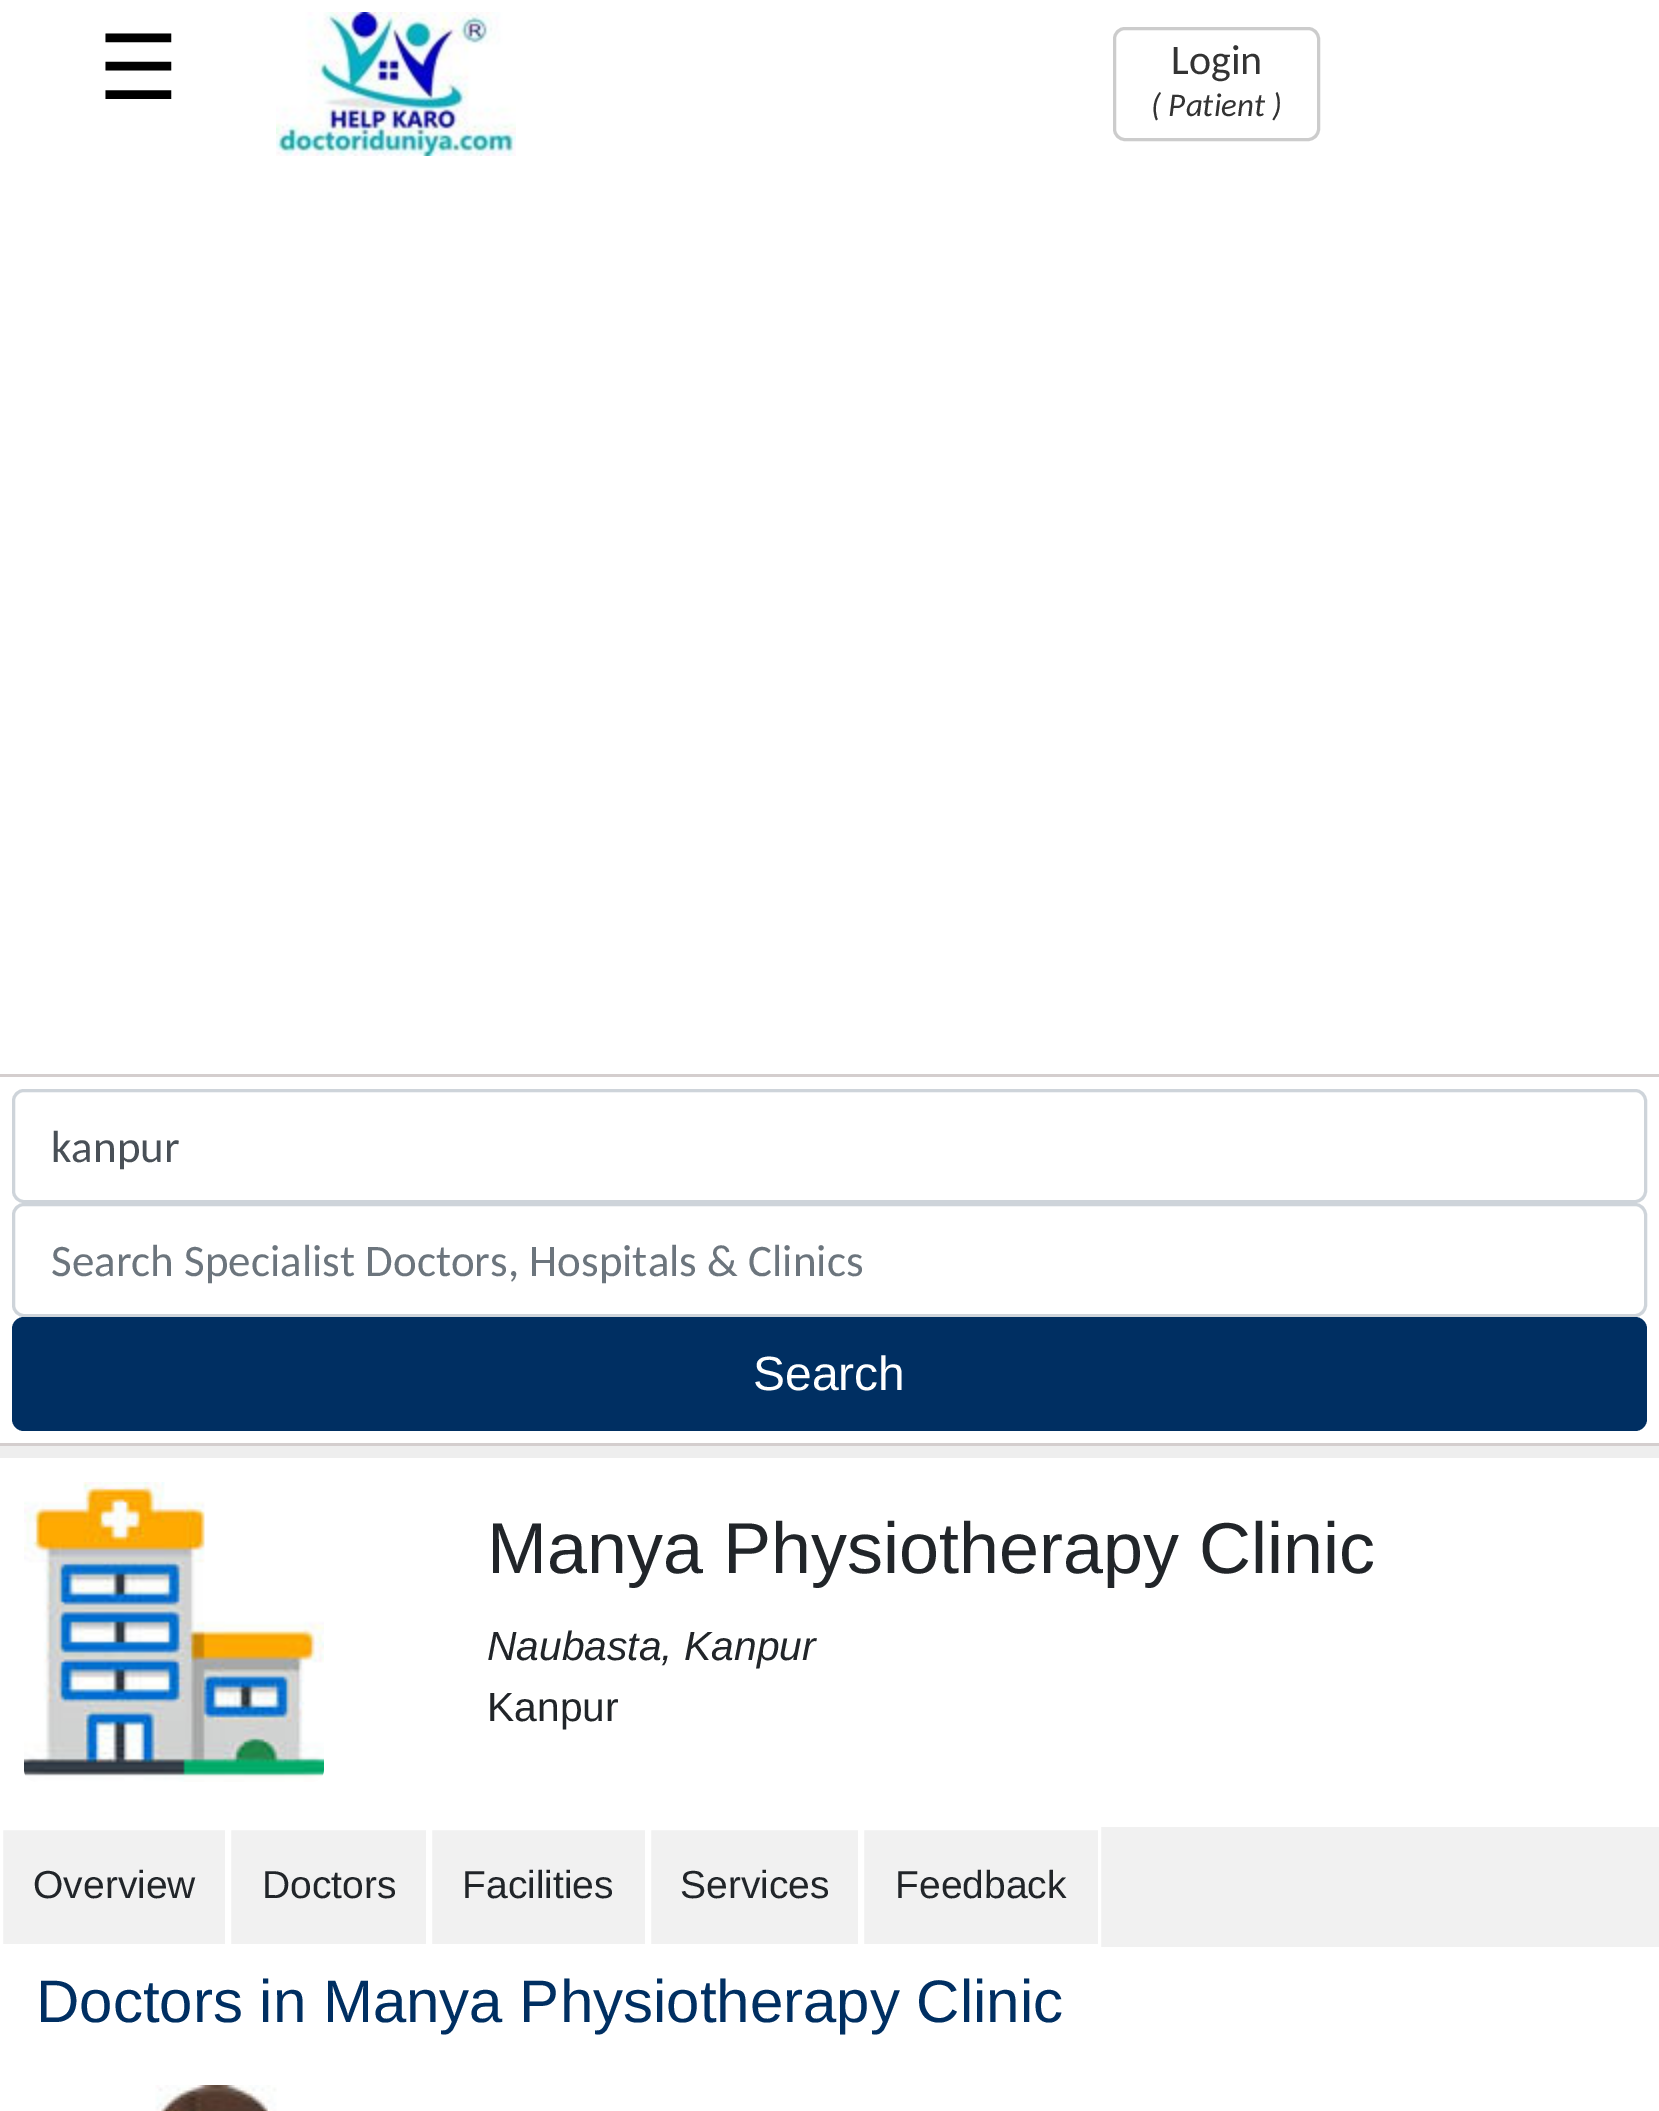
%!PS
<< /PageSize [1659 2111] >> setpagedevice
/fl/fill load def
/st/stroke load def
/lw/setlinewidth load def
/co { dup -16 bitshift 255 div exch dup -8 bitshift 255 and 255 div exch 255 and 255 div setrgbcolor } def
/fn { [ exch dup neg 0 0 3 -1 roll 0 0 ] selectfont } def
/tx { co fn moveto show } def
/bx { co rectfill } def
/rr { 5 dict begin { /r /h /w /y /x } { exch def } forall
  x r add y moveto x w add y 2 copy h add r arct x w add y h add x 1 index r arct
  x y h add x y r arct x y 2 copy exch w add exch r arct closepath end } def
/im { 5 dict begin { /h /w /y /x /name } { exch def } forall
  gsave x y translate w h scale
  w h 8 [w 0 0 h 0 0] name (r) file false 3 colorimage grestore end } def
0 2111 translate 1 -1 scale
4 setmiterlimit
0 0 1659 2111 16#FFFFFF bx
(media/1.raw) 276 12 240 144 im
16#CCCCCC co
3 lw
1114.5 28.5 204 111 10.5 rr st
0 1074 1659 3 16#D4CECE bx
0 1443 1659 3 16#D4CECE bx
16#CED4DA co
13.5 1090.5 1632 111 10.5 rr st
13.5 1204.5 1632 111 10.5 rr st
16#002F62 co
12 1317 1635 114 12 rr fl
0 1446 1659 12 16#EEEEEE bx
(media/2.raw) 24 1482 300 300 im
3 1827 1656 120 16#F1F1F1 bx
16#FFFFFF co
1.5 1828.5 225 117 rectstroke
229.5 1828.5 198 117 rectstroke
430.5 1828.5 216 117 rectstroke
649.5 1828.5 210 117 rectstroke
862.5 1828.5 237 117 rectstroke
(media/3.raw) 155 2085 122 26 im
(☰) 98 99 /DejaVuSans-Regular 90 16#000000 tx
(Login) 1171 74 /Carlito-Regular 42 16#333333 tx
(\( Patient \)) 1151 116 /Carlito-Italic 33 16#333333 tx
(kanpur) 51 1162 /Carlito-Regular 45 16#495057 tx
(Search Specialist Doctors, Hospitals & Clinics) 51 1276 /Carlito-Regular 45 16#6C757D tx
(Search) 753 1390 /LiberationSans-Regular 48 16#FFFFFF tx
(Manya Physiotherapy Clinic) 487 1573 /LiberationSans-Regular 72 16#212529 tx
(Naubasta, Kanpur) 487 1660 /LiberationSans-Italic 40.75 16#212529 tx
(Kanpur) 487 1721 /LiberationSans-Regular 40.75 16#212529 tx
(Overview) 33 1898 /LiberationSans-Regular 39 16#212529 tx
(Doctors) 262 1898 /LiberationSans-Regular 39 16#212529 tx
(Facilities) 462 1898 /LiberationSans-Regular 39 16#212529 tx
(Services) 680 1898 /LiberationSans-Regular 39 16#212529 tx
(Feedback) 895 1898 /LiberationSans-Regular 39 16#212529 tx
(Doctors in Manya Physiotherapy Clinic) 36 2022 /LiberationSans-Regular 60 16#002F62 tx
showpage
